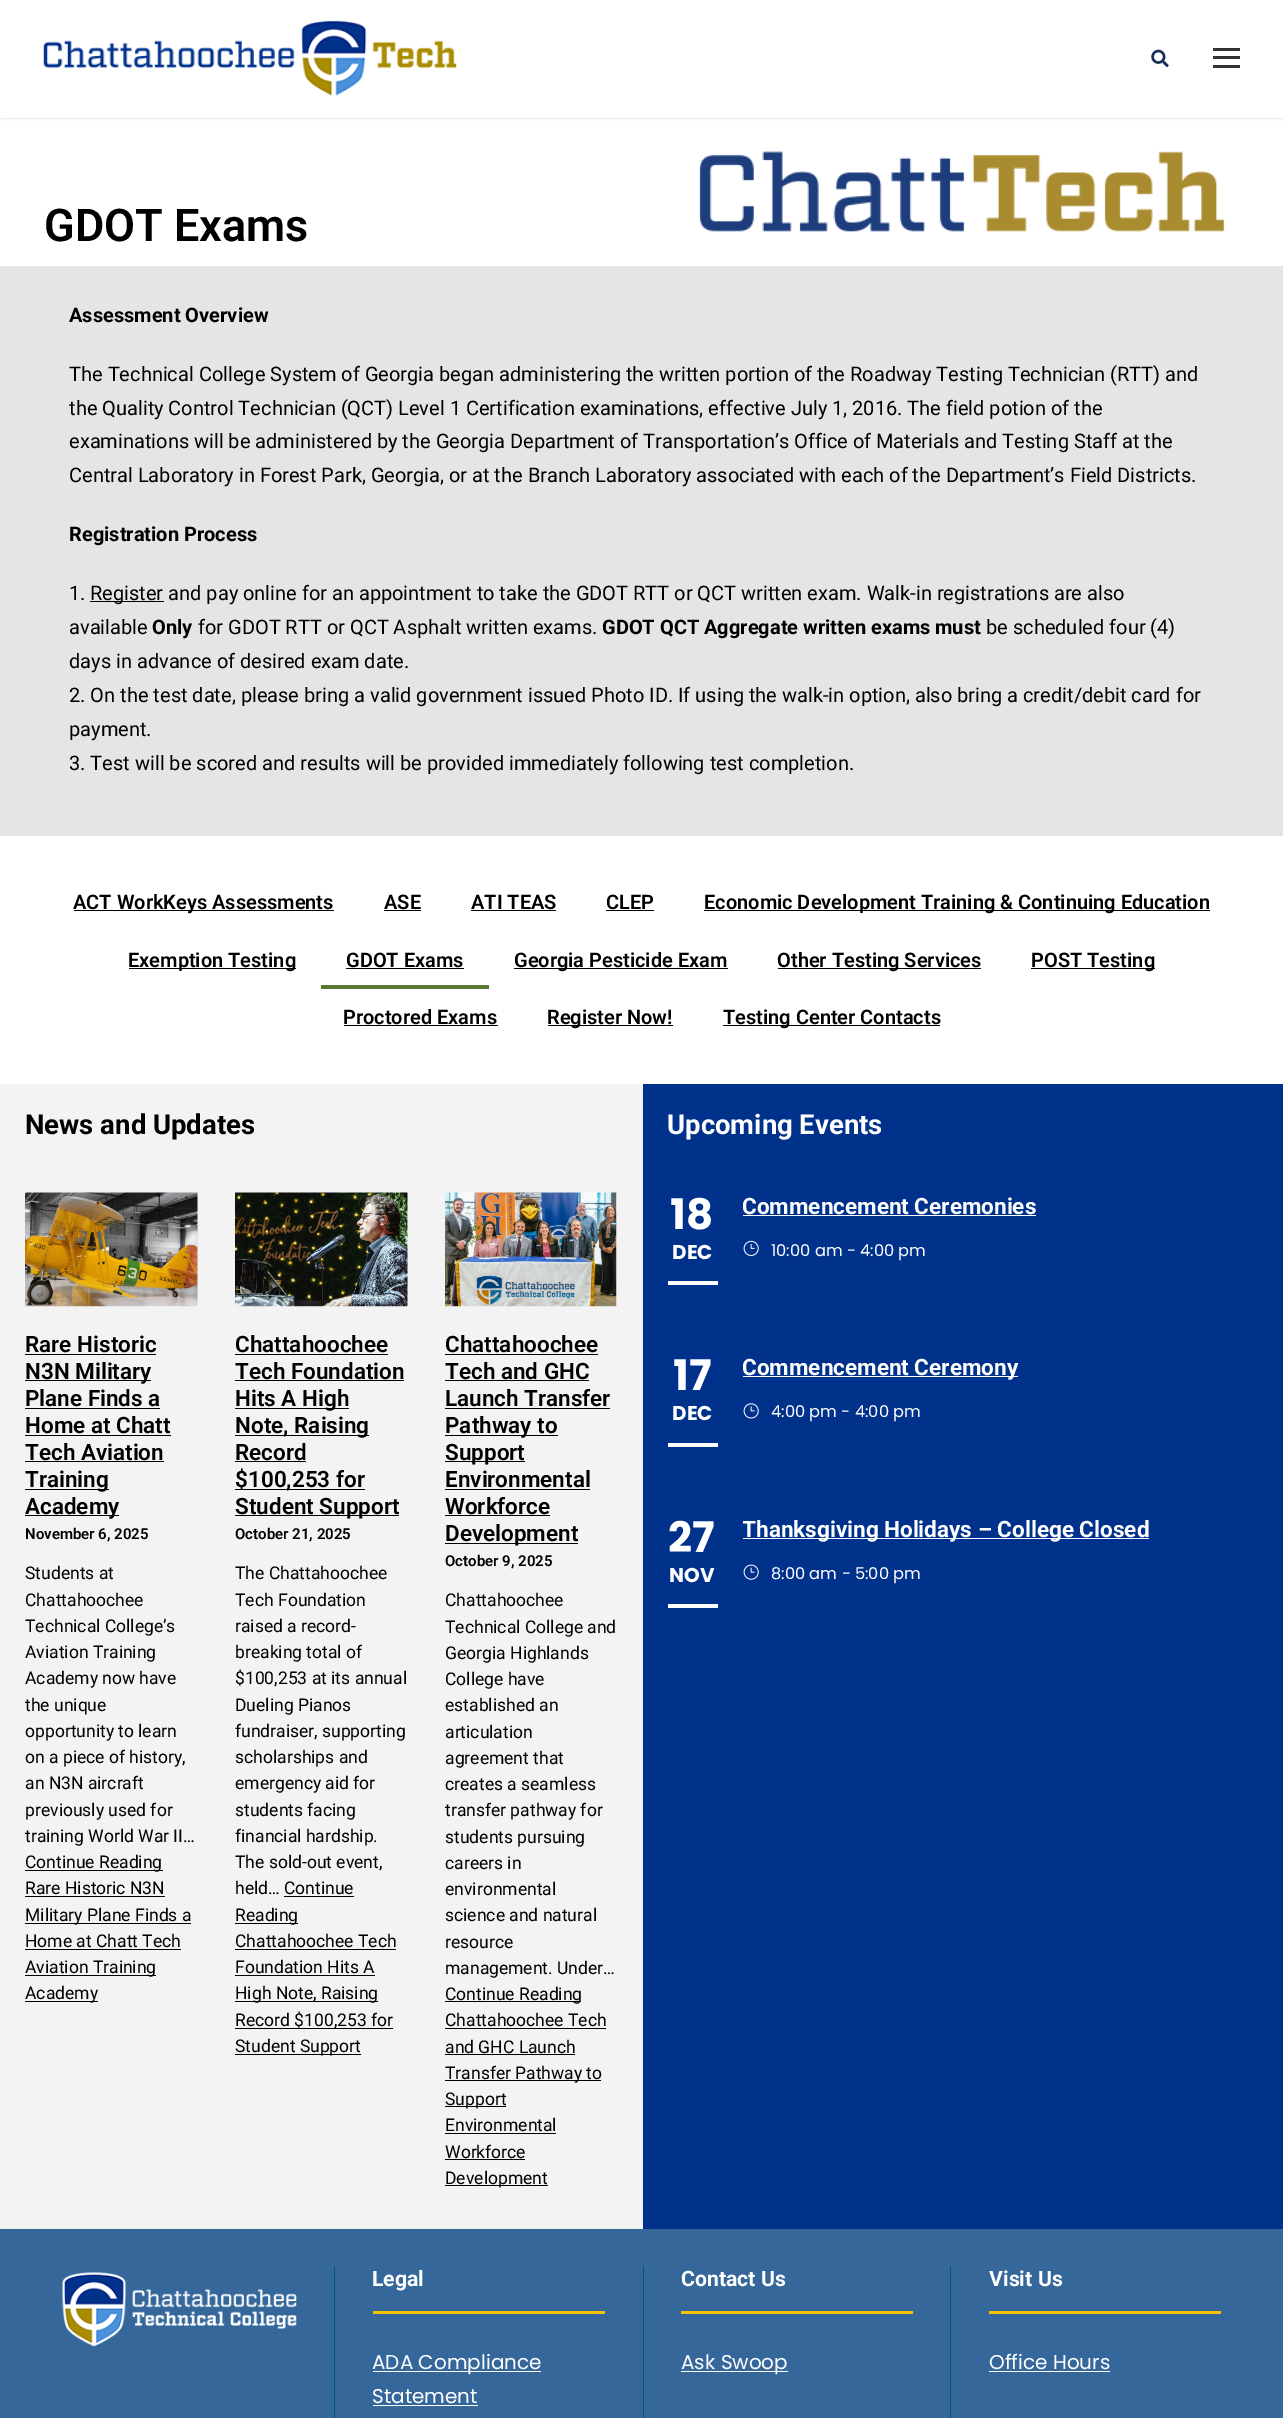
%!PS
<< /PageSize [1283 2418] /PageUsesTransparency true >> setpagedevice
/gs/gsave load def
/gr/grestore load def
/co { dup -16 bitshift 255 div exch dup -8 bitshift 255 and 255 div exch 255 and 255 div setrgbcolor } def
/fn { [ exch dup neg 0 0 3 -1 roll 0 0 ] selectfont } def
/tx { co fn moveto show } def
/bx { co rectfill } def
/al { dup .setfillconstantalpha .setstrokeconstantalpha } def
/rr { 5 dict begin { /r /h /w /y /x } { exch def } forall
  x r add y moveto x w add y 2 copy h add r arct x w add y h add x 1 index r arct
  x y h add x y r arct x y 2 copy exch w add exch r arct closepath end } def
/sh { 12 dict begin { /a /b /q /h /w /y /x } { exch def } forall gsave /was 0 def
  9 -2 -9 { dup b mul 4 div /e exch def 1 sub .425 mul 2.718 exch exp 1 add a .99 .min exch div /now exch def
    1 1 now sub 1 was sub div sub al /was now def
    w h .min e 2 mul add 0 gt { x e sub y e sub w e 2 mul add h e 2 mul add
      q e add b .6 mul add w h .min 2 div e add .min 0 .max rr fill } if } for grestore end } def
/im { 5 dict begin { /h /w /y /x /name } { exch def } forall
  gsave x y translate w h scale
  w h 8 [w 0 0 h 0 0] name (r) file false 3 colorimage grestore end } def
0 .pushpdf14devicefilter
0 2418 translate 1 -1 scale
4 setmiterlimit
0 0 1283 2418 16#F3F3F3 bx
0 118 1283 148 16#FFFFFF bx
16#000000 co
0 1 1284 118 0 1 .1 sh
0 0 1283 118 16#FFFFFF bx
(media/1.raw) 43 20 414 76 im
(media/2.raw) 1151 49 18 19 im
1213 48 27 3 16#333333 bx
1213 56 27 3 16#333333 bx
1213 65 27 3 16#333333 bx
(media/3.raw) 699 151 526 81 im
0 266 1283 570 16#E5E5E5 bx
90 601 74 1 16#000000 bx
0 836 1283 248 16#FFFFFF bx
74 910 260 1 16#000000 bx
384 910 37 1 16#000000 bx
471 910 85 1 16#000000 bx
606 910 48 1 16#000000 bx
704 910 506 1 16#000000 bx
129 968 167 1 16#000000 bx
346 968 118 1 16#000000 bx
321 985 168 4 16#587934 bx
514 968 214 1 16#000000 bx
778 968 203 1 16#000000 bx
1031 968 124 1 16#000000 bx
344 1025 154 1 16#000000 bx
548 1025 125 1 16#000000 bx
723 1025 217 1 16#000000 bx
(media/4.raw) 25 1192 173 115 im
25 1354 131 1 16#000000 bx
25 1380 126 1 16#000000 bx
25 1408 135 1 16#000000 bx
25 1435 146 1 16#000000 bx
25 1461 139 1 16#000000 bx
25 1489 84 1 16#000000 bx
25 1515 94 1 16#000000 bx
25 1870 138 1 16#000000 bx
25 1896 140 1 16#000000 bx
25 1923 166 1 16#000000 bx
25 1949 156 1 16#000000 bx
25 1975 131 1 16#000000 bx
25 2001 73 1 16#000000 bx
(media/5.raw) 235 1192 173 115 im
235 1354 153 1 16#000000 bx
235 1380 169 1 16#000000 bx
235 1408 114 1 16#000000 bx
235 1435 134 1 16#000000 bx
235 1461 71 1 16#000000 bx
235 1489 130 1 16#000000 bx
235 1515 164 1 16#000000 bx
284 1896 70 1 16#000000 bx
235 1923 63 1 16#000000 bx
235 1949 161 1 16#000000 bx
235 1975 140 1 16#000000 bx
235 2001 143 1 16#000000 bx
235 2028 158 1 16#000000 bx
235 2054 126 1 16#000000 bx
(media/6.raw) 445 1192 172 115 im
445 1354 153 1 16#000000 bx
445 1380 144 1 16#000000 bx
445 1408 165 1 16#000000 bx
445 1435 113 1 16#000000 bx
445 1461 80 1 16#000000 bx
445 1489 145 1 16#000000 bx
445 1515 105 1 16#000000 bx
445 1543 133 1 16#000000 bx
445 2001 136 1 16#000000 bx
445 2028 161 1 16#000000 bx
445 2054 130 1 16#000000 bx
445 2080 156 1 16#000000 bx
445 2106 61 1 16#000000 bx
445 2133 111 1 16#000000 bx
445 2159 80 1 16#000000 bx
445 2185 103 1 16#000000 bx
643 1084 640 1145 16#00328C bx
668 1281 50 4 16#FFFFFF bx
743 1215 293 1 16#FFFFFF bx
(media/7.raw) 743 1240 16 16 im
668 1443 50 4 16#FFFFFF bx
743 1376 275 1 16#FFFFFF bx
(media/8.raw) 743 1403 16 16 im
668 1604 50 4 16#FFFFFF bx
743 1538 406 1 16#FFFFFF bx
(media/9.raw) 743 1564 16 16 im
0 2229 1283 189 16#35679B bx
(media/10.raw) 62 2272 235 75 im
334 2266 1 152 16#005581 bx
373 2311 232 3 16#F7C104 bx
373 2371 168 1 16#FFFFFF bx
373 2405 105 1 16#FFFFFF bx
643 2266 1 152 16#005581 bx
681 2311 232 3 16#F7C104 bx
681 2371 107 1 16#FFFFFF bx
950 2266 1 152 16#005581 bx
989 2311 232 3 16#F7C104 bx
989 2371 121 1 16#FFFFFF bx
(GDOT Exams) 44 241 /Roboto-SemiBold 45 16#000000 tx
(Assessment Overview) 69 322 /Roboto-Bold 20 16#000000 tx
(The Technical College System of Georgia began administering the written portion of the Roadway Testing Technician \(RTT\) and) 69 381 /Roboto-Regular 20 16#000000 tx
(the Quality Control Technician \(QCT\) Level 1 Certification examinations, effective July 1, 2016. The field potion of the) 69 415 /Roboto-Regular 20 16#000000 tx
(examinations will be administered by the Georgia Department of Transportation’s Office of Materials and Testing Staff at the) 69 448 /Roboto-Regular 20 16#000000 tx
(Central Laboratory in Forest Park, Georgia, or at the Branch Laboratory associated with each of the Department’s Field Districts.) 69 482 /Roboto-Regular 20 16#000000 tx
(Registration Process) 69 541 /Roboto-Bold 20 16#000000 tx
(1.) 69 600 /Roboto-Regular 20 16#000000 tx
(Register and pay online for an appointment to take the GDOT RTT or QCT written exam. Walk-in registrations are also) 90 600 /Roboto-Regular 20 16#000000 tx
(available) 69 634 /Roboto-Regular 20 16#000000 tx
(Only) 152 634 /Roboto-Bold 20 16#000000 tx
(for GDOT RTT or QCT Asphalt written exams.) 198 634 /Roboto-Regular 20 16#000000 tx
(GDOT QCT Aggregate written exams must) 602 634 /Roboto-Bold 20 16#000000 tx
(be scheduled four \(4\)) 986 634 /Roboto-Regular 20 16#000000 tx
(days in advance of desired exam date.) 69 668 /Roboto-Regular 20 16#000000 tx
(2. On the test date, please bring a valid government issued Photo ID. If using the walk-in option, also bring a credit/debit card for) 69 702 /Roboto-Regular 20 16#000000 tx
(payment.) 69 736 /Roboto-Regular 20 16#000000 tx
(3. Test will be scored and results will be provided immediately following test completion.) 69 770 /Roboto-Regular 20 16#000000 tx
(ACT WorkKeys Assessments) 73 909 /Roboto-SemiBold 20 16#000000 tx
(ASE) 384 909 /Roboto-SemiBold 20 16#000000 tx
(ATI TEAS) 471 909 /Roboto-SemiBold 20 16#000000 tx
(CLEP) 606 909 /Roboto-SemiBold 20 16#000000 tx
(Economic Development Training & Continuing Education) 704 909 /Roboto-SemiBold 20 16#000000 tx
(Exemption Testing) 128 967 /Roboto-SemiBold 20 16#000000 tx
(GDOT Exams) 346 967 /Roboto-SemiBold 20 16#000000 tx
(Georgia Pesticide Exam) 514 967 /Roboto-SemiBold 20 16#000000 tx
(Other Testing Services) 777 967 /Roboto-SemiBold 20 16#000000 tx
(POST Testing) 1031 967 /Roboto-SemiBold 20 16#000000 tx
(Proctored Exams) 343 1024 /Roboto-SemiBold 20 16#000000 tx
(Register Now!) 547 1024 /Roboto-SemiBold 20 16#000000 tx
(Testing Center Contacts) 723 1024 /Roboto-SemiBold 20 16#000000 tx
(News and Updates) 25 1134 /Roboto-Bold 27.5 16#000000 tx
(Rare Historic) 25 1352 /Roboto-SemiBold 22.5 16#000000 tx
(N3N Military) 25 1379 /Roboto-SemiBold 22.5 16#000000 tx
(Plane Finds a) 25 1406 /Roboto-SemiBold 22.5 16#000000 tx
(Home at Chatt) 25 1433 /Roboto-SemiBold 22.5 16#000000 tx
(Tech Aviation) 25 1460 /Roboto-SemiBold 22.5 16#000000 tx
(Training) 25 1487 /Roboto-SemiBold 22.5 16#000000 tx
(Academy) 25 1514 /Roboto-SemiBold 22.5 16#000000 tx
(November 6, 2025) 25 1539 /Roboto-SemiBold 15 16#000000 tx
(Students at) 25 1579 /Roboto-Regular 17.5 16#000000 tx
(Chattahoochee) 25 1606 /Roboto-Regular 17.5 16#000000 tx
(Technical College’s) 25 1632 /Roboto-Regular 17.5 16#000000 tx
(Aviation Training) 25 1658 /Roboto-Regular 17.5 16#000000 tx
(Academy now have) 25 1684 /Roboto-Regular 17.5 16#000000 tx
(the unique) 25 1711 /Roboto-Regular 17.5 16#000000 tx
(opportunity to learn) 25 1737 /Roboto-Regular 17.5 16#000000 tx
(on a piece of history,) 25 1763 /Roboto-Regular 17.5 16#000000 tx
(an N3N aircraft) 25 1789 /Roboto-Regular 17.5 16#000000 tx
(previously used for) 25 1816 /Roboto-Regular 17.5 16#000000 tx
(training World War II…) 25 1842 /Roboto-Regular 17.5 16#000000 tx
(Continue Reading) 25 1868 /Roboto-Regular 17.5 16#000000 tx
(Rare Historic N3N) 25 1894 /Roboto-Regular 17.5 16#000000 tx
(Military Plane Finds a) 25 1921 /Roboto-Regular 17.5 16#000000 tx
(Home at Chatt Tech) 25 1947 /Roboto-Regular 17.5 16#000000 tx
(Aviation Training) 25 1973 /Roboto-Regular 17.5 16#000000 tx
(Academy) 25 1999 /Roboto-Regular 17.5 16#000000 tx
(Chattahoochee) 235 1352 /Roboto-SemiBold 22.5 16#000000 tx
(Tech Foundation) 235 1379 /Roboto-SemiBold 22.5 16#000000 tx
(Hits A High) 235 1406 /Roboto-SemiBold 22.5 16#000000 tx
(Note, Raising) 235 1433 /Roboto-SemiBold 22.5 16#000000 tx
(Record) 235 1460 /Roboto-SemiBold 22.5 16#000000 tx
($100,253 for) 235 1487 /Roboto-SemiBold 22.5 16#000000 tx
(Student Support) 235 1514 /Roboto-SemiBold 22.5 16#000000 tx
(October 21, 2025) 235 1539 /Roboto-SemiBold 15 16#000000 tx
(The Chattahoochee) 235 1579 /Roboto-Regular 17.5 16#000000 tx
(Tech Foundation) 235 1606 /Roboto-Regular 17.5 16#000000 tx
(raised a record-) 235 1632 /Roboto-Regular 17.5 16#000000 tx
(breaking total of) 235 1658 /Roboto-Regular 17.5 16#000000 tx
($100,253 at its annual) 235 1684 /Roboto-Regular 17.5 16#000000 tx
(Dueling Pianos) 235 1711 /Roboto-Regular 17.5 16#000000 tx
(fundraiser, supporting) 235 1737 /Roboto-Regular 17.5 16#000000 tx
(scholarships and) 235 1763 /Roboto-Regular 17.5 16#000000 tx
(emergency aid for) 235 1789 /Roboto-Regular 17.5 16#000000 tx
(students facing) 235 1816 /Roboto-Regular 17.5 16#000000 tx
(financial hardship.) 235 1842 /Roboto-Regular 17.5 16#000000 tx
(The sold-out event,) 235 1868 /Roboto-Regular 17.5 16#000000 tx
(held… Continue) 235 1894 /Roboto-Regular 17.5 16#000000 tx
(Reading) 235 1921 /Roboto-Regular 17.5 16#000000 tx
(Chattahoochee Tech) 235 1947 /Roboto-Regular 17.5 16#000000 tx
(Foundation Hits A) 235 1973 /Roboto-Regular 17.5 16#000000 tx
(High Note, Raising) 235 1999 /Roboto-Regular 17.5 16#000000 tx
(Record $100,253 for) 235 2026 /Roboto-Regular 17.5 16#000000 tx
(Student Support) 235 2052 /Roboto-Regular 17.5 16#000000 tx
(Chattahoochee) 445 1352 /Roboto-SemiBold 22.5 16#000000 tx
(Tech and GHC) 445 1379 /Roboto-SemiBold 22.5 16#000000 tx
(Launch Transfer) 445 1406 /Roboto-SemiBold 22.5 16#000000 tx
(Pathway to) 445 1433 /Roboto-SemiBold 22.5 16#000000 tx
(Support) 445 1460 /Roboto-SemiBold 22.5 16#000000 tx
(Environmental) 445 1487 /Roboto-SemiBold 22.5 16#000000 tx
(Workforce) 445 1514 /Roboto-SemiBold 22.5 16#000000 tx
(Development) 445 1541 /Roboto-SemiBold 22.5 16#000000 tx
(October 9, 2025) 445 1566 /Roboto-SemiBold 15 16#000000 tx
(Chattahoochee) 445 1606 /Roboto-Regular 17.5 16#000000 tx
(Technical College and) 445 1633 /Roboto-Regular 17.5 16#000000 tx
(Georgia Highlands) 445 1659 /Roboto-Regular 17.5 16#000000 tx
(College have) 445 1685 /Roboto-Regular 17.5 16#000000 tx
(established an) 445 1711 /Roboto-Regular 17.5 16#000000 tx
(articulation) 445 1738 /Roboto-Regular 17.5 16#000000 tx
(agreement that) 445 1764 /Roboto-Regular 17.5 16#000000 tx
(creates a seamless) 445 1790 /Roboto-Regular 17.5 16#000000 tx
(transfer pathway for) 445 1816 /Roboto-Regular 17.5 16#000000 tx
(students pursuing) 445 1843 /Roboto-Regular 17.5 16#000000 tx
(careers in) 445 1869 /Roboto-Regular 17.5 16#000000 tx
(environmental) 445 1895 /Roboto-Regular 17.5 16#000000 tx
(science and natural) 445 1921 /Roboto-Regular 17.5 16#000000 tx
(resource) 445 1948 /Roboto-Regular 17.5 16#000000 tx
(management. Under…) 445 1974 /Roboto-Regular 17.5 16#000000 tx
(Continue Reading) 445 2000 /Roboto-Regular 17.5 16#000000 tx
(Chattahoochee Tech) 445 2026 /Roboto-Regular 17.5 16#000000 tx
(and GHC Launch) 445 2053 /Roboto-Regular 17.5 16#000000 tx
(Transfer Pathway to) 445 2079 /Roboto-Regular 17.5 16#000000 tx
(Support) 445 2105 /Roboto-Regular 17.5 16#000000 tx
(Environmental) 445 2131 /Roboto-Regular 17.5 16#000000 tx
(Workforce) 445 2158 /Roboto-Regular 17.5 16#000000 tx
(Development) 445 2184 /Roboto-Regular 17.5 16#000000 tx
(Upcoming Events) 667 1134 /Roboto-Bold 27.5 16#FFFFFF tx
(18) 670 1229 /Poppins-Bold 42 16#FFFFFF tx
(DEC) 672 1259 /Poppins-Bold 20 16#FFFFFF tx
gs
743 1193 516 72 rectclip
(Commencement Ceremonies) 742 1214 /Roboto-Bold 22.5 16#FFFFFF tx
gr
(10:00 am - 4:00 pm) 771 1256 /Poppins-Regular 16.25 16#FFFFFF tx
(17) 673 1390 /Poppins-Bold 42 16#FFFFFF tx
(DEC) 672 1420 /Poppins-Bold 20 16#FFFFFF tx
gs
743 1354 516 72 rectclip
(Commencement Ceremony) 742 1375 /Roboto-Bold 22.5 16#FFFFFF tx
gr
(4:00 pm - 4:00 pm) 771 1417 /Poppins-Regular 16.25 16#FFFFFF tx
(27) 668 1552 /Poppins-Bold 42 16#FFFFFF tx
(NOV) 669 1582 /Poppins-Bold 20 16#FFFFFF tx
gs
743 1515 516 73 rectclip
(Thanksgiving Holidays – College Closed) 742 1537 /Roboto-Bold 22.5 16#FFFFFF tx
gr
(8:00 am - 5:00 pm) 771 1579 /Poppins-Regular 16.25 16#FFFFFF tx
(Legal) 372 2286 /Roboto-Bold 21.25 16#FFFFFF tx
(ADA Compliance) 372 2369 /Poppins-Regular 20 16#FFFFFF tx
(Statement) 372 2403 /Poppins-Regular 20 16#FFFFFF tx
(Contact Us) 681 2286 /Roboto-Bold 21.25 16#FFFFFF tx
(Ask Swoop) 681 2369 /Poppins-Regular 20 16#FFFFFF tx
(Visit Us) 989 2286 /Roboto-Bold 21.25 16#FFFFFF tx
(Office Hours) 989 2369 /Poppins-Regular 20 16#FFFFFF tx
.poppdf14devicefilter showpage
